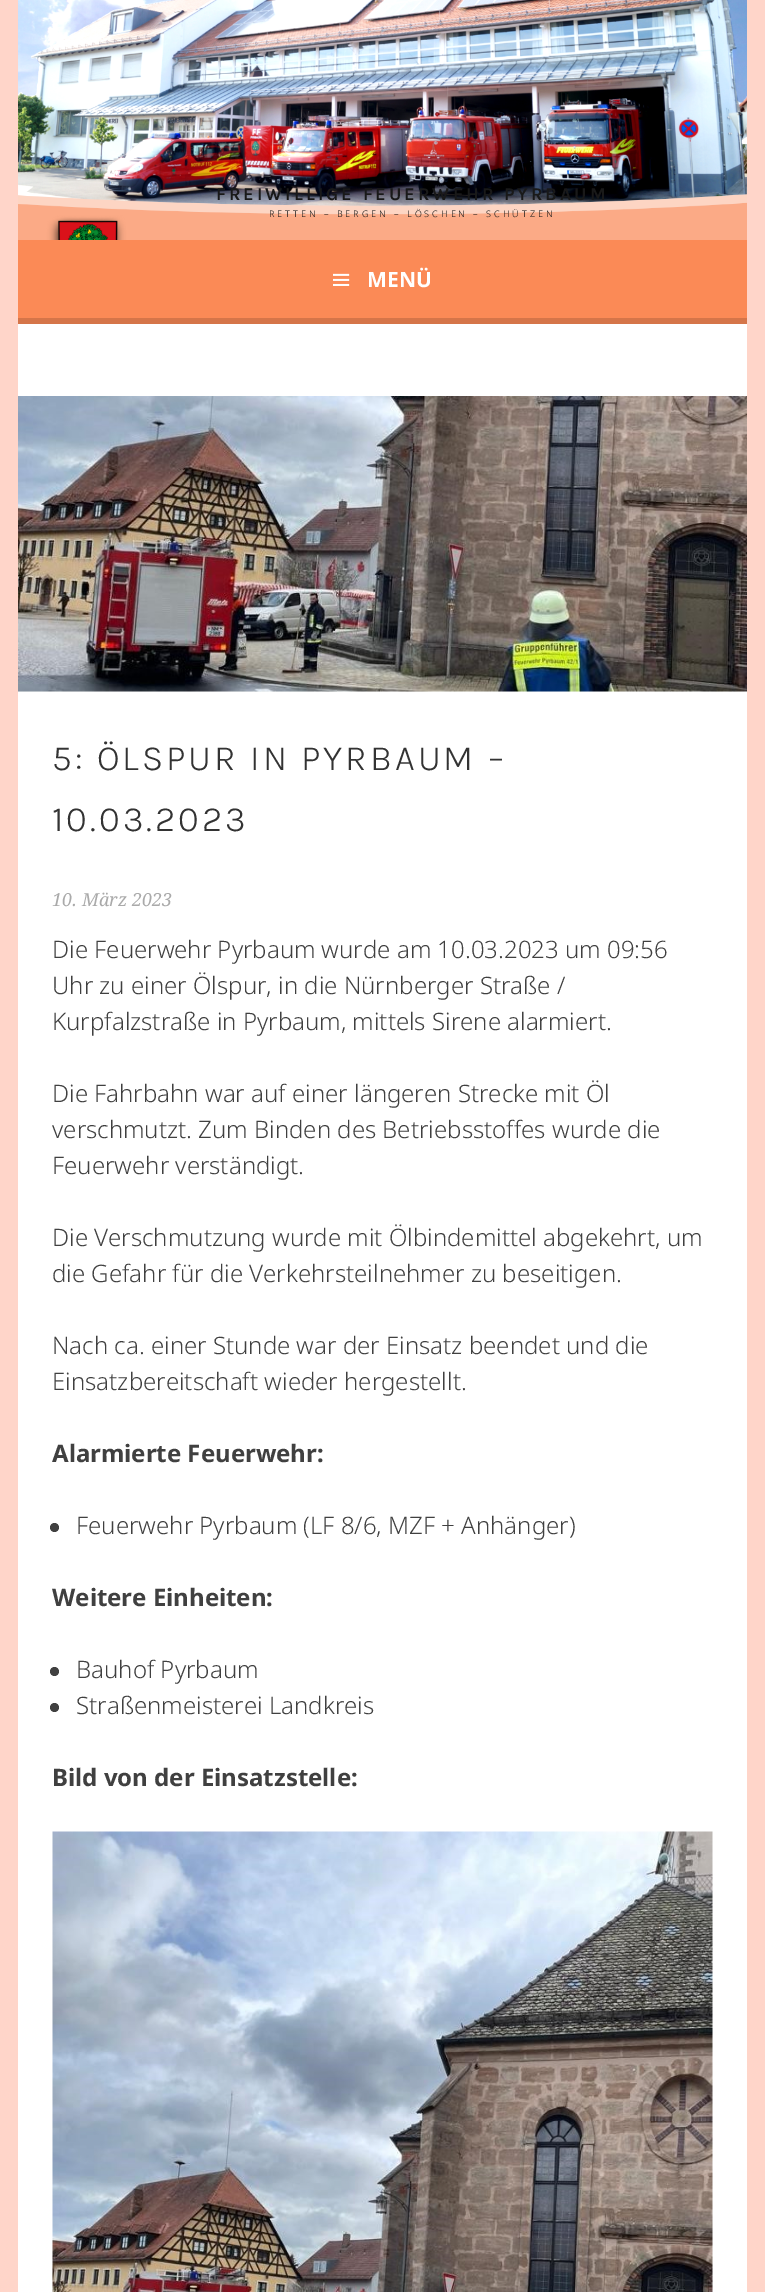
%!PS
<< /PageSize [765 2292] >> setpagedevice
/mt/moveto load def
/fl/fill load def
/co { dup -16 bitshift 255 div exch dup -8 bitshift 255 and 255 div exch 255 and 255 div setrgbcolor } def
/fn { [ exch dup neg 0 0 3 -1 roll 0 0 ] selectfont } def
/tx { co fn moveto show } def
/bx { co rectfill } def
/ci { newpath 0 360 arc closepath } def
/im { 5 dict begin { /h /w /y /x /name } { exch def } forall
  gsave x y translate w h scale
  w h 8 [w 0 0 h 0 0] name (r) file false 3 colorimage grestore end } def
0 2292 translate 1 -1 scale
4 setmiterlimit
0 0 765 2292 16#FFD5C9 bx
(media/1.raw) 18 0 729 240 im
18 240 729 78 16#FB8A56 bx
18 318 729 6 16#D57549 bx
(media/2.raw) 333 273 17 13 im
18 324 729 1968 16#FFFFFF bx
18 691 729 1 16#F8F9F8 bx
(media/3.raw) 18 396 729 296 im
16#404040 co
54.5 1527.5 4.5 ci fl
54.5 1671.5 4.5 ci fl
54.5 1707.5 4.5 ci fl
(media/4.raw) 52 1831 661 461 im
/Karla-Bold 18 fn
16#191919 co
216 200 mt 3 0 (FREIWILLIGE FEUERWEHR PYRBAUM) ashow
/NotoSans-Light 9 fn
269 217 mt 3 0 (RETTEN – BERGEN – LÖSCHEN – SCHÜTZEN) ashow
(MENÜ) 367 287 /NotoSans-Bold 21 16#FFFFFF tx
/Karla-Light 36 fn
16#333333 co
52 770 mt 3 0 (5: ÖLSPUR IN PYRBAUM –) ashow
52 831 mt 3 0 (10.03.2023) ashow
(10. März 2023) 52 906 /DroidSerif-Italic 18 16#AAAAAA tx
(Die Feuerwehr Pyrbaum wurde am 10.03.2023 um 09:56) 52 958 /NotoSans-Light 24 16#404040 tx
(Uhr zu einer Ölspur, in die Nürnberger Straße /) 52 994 /NotoSans-Light 24 16#404040 tx
(Kurpfalzstraße in Pyrbaum, mittels Sirene alarmiert.) 52 1030 /NotoSans-Light 24 16#404040 tx
(Die Fahrbahn war auf einer längeren Strecke mit Öl) 52 1102 /NotoSans-Light 24 16#404040 tx
(verschmutzt. Zum Binden des Betriebsstoffes wurde die) 52 1138 /NotoSans-Light 24 16#404040 tx
(Feuerwehr verständigt.) 52 1174 /NotoSans-Light 24 16#404040 tx
(Die Verschmutzung wurde mit Ölbindemittel abgekehrt, um) 52 1246 /NotoSans-Light 24 16#404040 tx
(die Gefahr für die Verkehrsteilnehmer zu beseitigen.) 52 1282 /NotoSans-Light 24 16#404040 tx
(Nach ca. einer Stunde war der Einsatz beendet und die) 52 1354 /NotoSans-Light 24 16#404040 tx
(Einsatzbereitschaft wieder hergestellt.) 52 1390 /NotoSans-Light 24 16#404040 tx
(Alarmierte Feuerwehr:) 52 1462 /NotoSans-Bold 24 16#404040 tx
(Feuerwehr Pyrbaum \(LF 8/6, MZF + Anhänger\)) 76 1534 /NotoSans-Light 24 16#404040 tx
(Weitere Einheiten:) 52 1606 /NotoSans-Bold 24 16#404040 tx
(Bauhof Pyrbaum) 76 1678 /NotoSans-Light 24 16#404040 tx
(Straßenmeisterei Landkreis) 76 1714 /NotoSans-Light 24 16#404040 tx
(Bild von der Einsatzstelle:) 52 1786 /NotoSans-Bold 24 16#404040 tx
showpage
